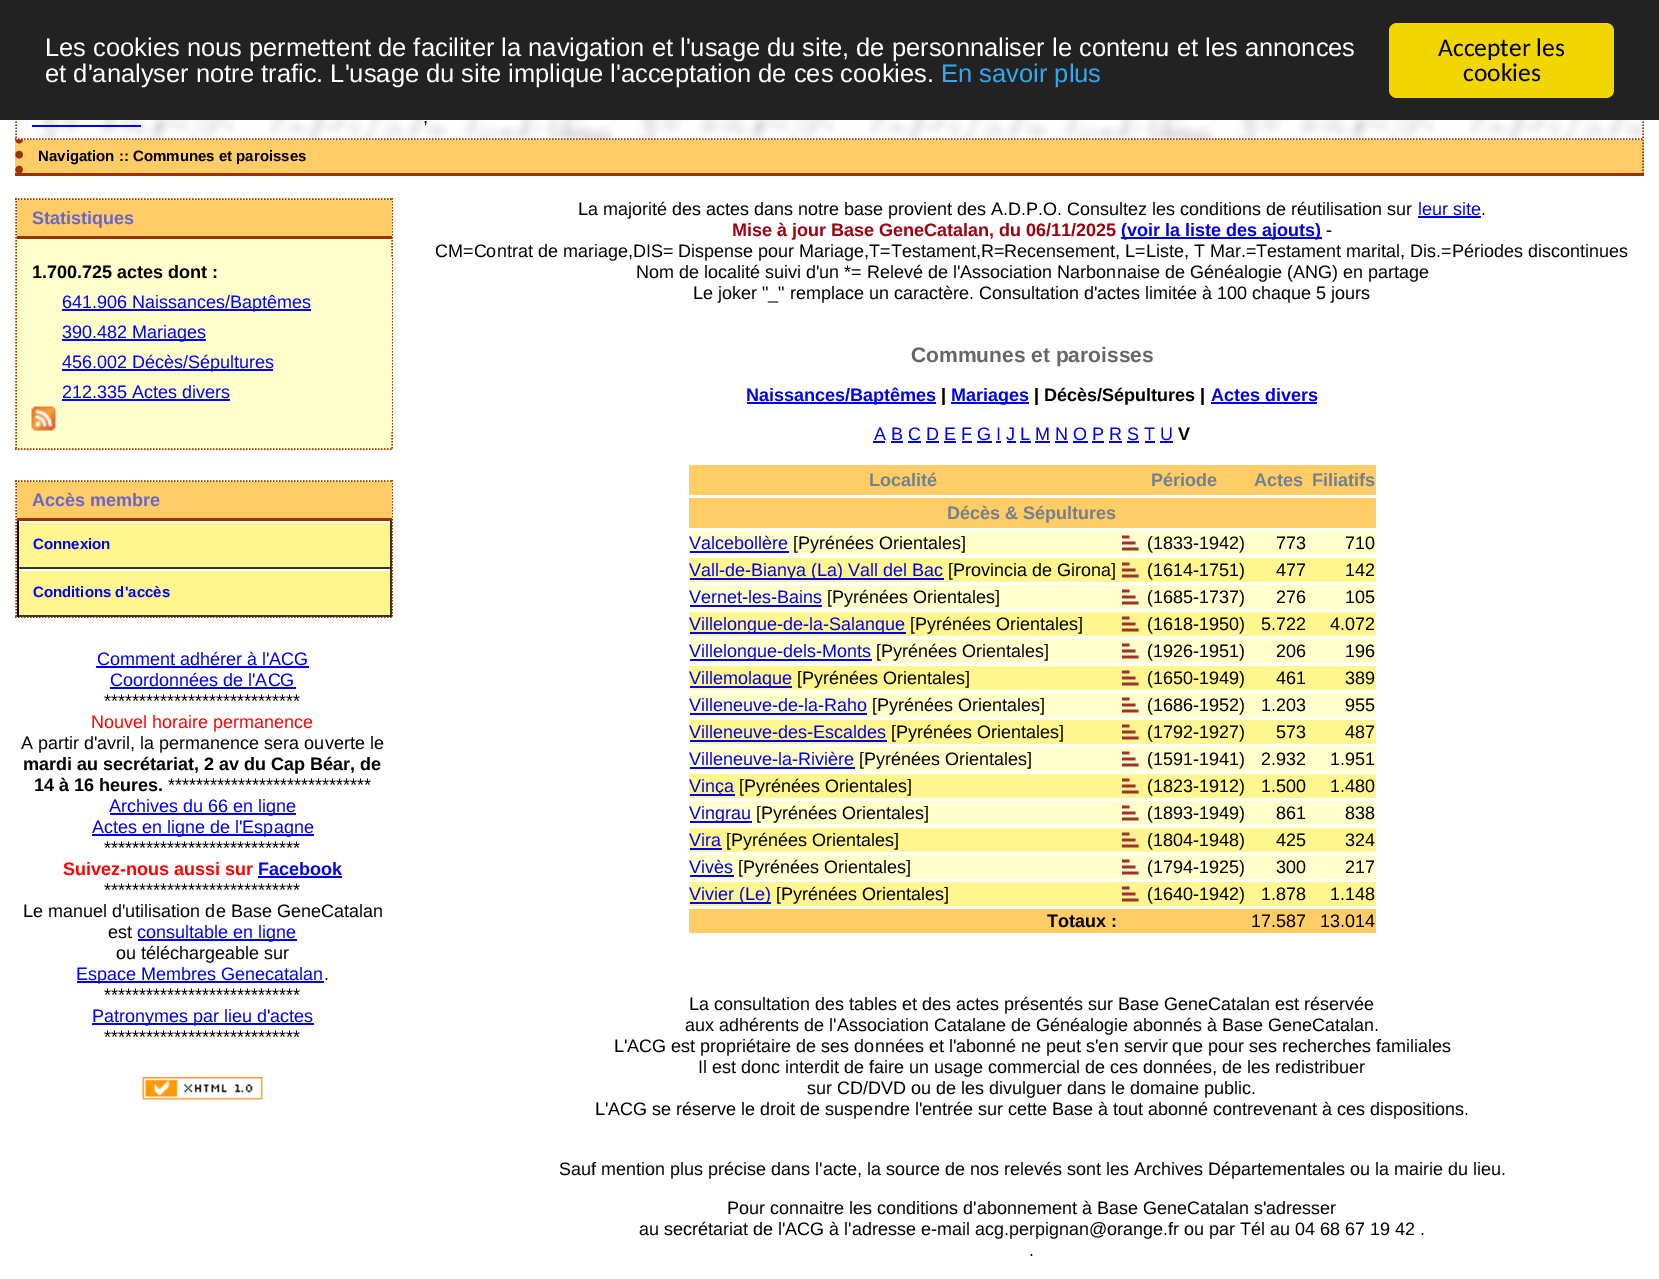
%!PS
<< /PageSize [1659 1279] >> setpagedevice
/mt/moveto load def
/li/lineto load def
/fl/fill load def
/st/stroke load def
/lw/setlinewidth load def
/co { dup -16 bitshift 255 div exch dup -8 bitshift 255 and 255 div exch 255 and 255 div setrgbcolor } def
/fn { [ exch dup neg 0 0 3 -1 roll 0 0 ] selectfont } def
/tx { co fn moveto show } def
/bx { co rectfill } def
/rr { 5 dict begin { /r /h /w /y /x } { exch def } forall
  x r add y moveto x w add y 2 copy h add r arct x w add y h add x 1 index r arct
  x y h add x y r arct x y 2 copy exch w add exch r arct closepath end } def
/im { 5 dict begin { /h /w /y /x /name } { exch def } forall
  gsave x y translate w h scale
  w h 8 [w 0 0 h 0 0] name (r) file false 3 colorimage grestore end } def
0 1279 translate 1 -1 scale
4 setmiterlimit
0 0 1659 1279 16#FFFFFF bx
15 140 1629 33 16#FFCC66 bx
16#993300 co
1.5 lw
[1.5 1.5] 0 setdash
1643 139.5 mt 1643 175.5 li st
15 173 1629 3 16#993300 bx
7.5 lw
1 setlinecap
[0 15] 0 setdash
19 139.5 mt 19 175.5 li st
(media/1.raw) 15 120 1629 20 im
1.5 lw
0 setlinecap
[1.5 1.5] 0 setdash
1643 94.5 mt 1643 139.5 li st
16 94.5 mt 16 139.5 li st
0 0 1659 120 16#222222 bx
16#F1D600 co
1389 23 225 75 8 rr fl
16#993300 co
15 139 mt 1644 139 li st
32 125 109 2 16#0000FF bx
15 198 378 252 16#FFFFCC bx
16#993300 co
15 199 mt 393 199 li st
392 198 mt 392 450 li st
15 449 mt 393 449 li st
16 198 mt 16 450 li st
17 200 375 36 16#FFCC66 bx
17 236 375 3 16#993300 bx
391 258 1 173 16#FFFFCC bx
62 309 249 2 16#0000FF bx
62 339 144 2 16#0000FF bx
62 369 211 2 16#0000FF bx
62 399 168 2 16#0000FF bx
(media/2.raw) 31 406 25 25 im
15 480 378 138 16#FFFFCC bx
16#993300 co
15 481 mt 393 481 li st
392 480 mt 392 618 li st
15 617 mt 393 617 li st
16 480 mt 16 618 li st
17 482 375 36 16#FFCC66 bx
17 518 375 3 16#993300 bx
19 523 371 44 16#FFF68F bx
17 521 375 2 16#FFFFFF bx
390 521 2 48 16#333333 bx
17 567 375 2 16#333333 bx
17 521 2 48 16#000000 bx
19 571 371 44 16#FFF68F bx
17 569 375 2 16#FFFFFF bx
390 569 2 48 16#333333 bx
17 615 375 2 16#333333 bx
17 569 2 48 16#000000 bx
96 666 213 2 16#0000EE bx
110 687 186 2 16#0000EE bx
110 813 186 2 16#0000EE bx
92 834 222 2 16#0000EE bx
258 876 84 2 16#0000EE bx
138 939 159 2 16#0000EE bx
77 981 247 2 16#0000EE bx
92 1023 222 2 16#0000EE bx
(media/3.raw) 142 1077 121 23 im
1418 216 63 2 16#0000EE bx
1121 237 201 2 16#0000EE bx
747 402 189 2 16#0000EE bx
951 402 78 2 16#0000EE bx
1211 402 106 2 16#0000EE bx
873 441 12 2 16#0000EE bx
891 441 12 2 16#0000EE bx
908 441 13 2 16#0000EE bx
926 441 13 2 16#0000EE bx
944 441 12 2 16#0000EE bx
962 441 10 2 16#0000EE bx
977 441 15 2 16#0000EE bx
996 441 5 2 16#0000EE bx
1007 441 9 2 16#0000EE bx
1020 441 11 2 16#0000EE bx
1035 441 15 2 16#0000EE bx
1055 441 13 2 16#0000EE bx
1073 441 15 2 16#0000EE bx
1092 441 12 2 16#0000EE bx
1109 441 13 2 16#0000EE bx
1127 441 12 2 16#0000EE bx
1145 441 10 2 16#0000EE bx
1160 441 13 2 16#0000EE bx
689 465 687 30 16#FFCC66 bx
689 498 687 30 16#FFCC66 bx
689 531 687 24 16#FFFFCC bx
690 551 99 2 16#0000EE bx
(media/4.raw) 1122 535 17 16 im
689 558 687 24 16#FFF68F bx
690 578 254 2 16#0000EE bx
(media/5.raw) 1122 562 17 16 im
689 585 687 24 16#FFFFCC bx
690 605 132 2 16#0000EE bx
(media/4.raw) 1122 589 17 16 im
689 612 687 24 16#FFF68F bx
690 632 216 2 16#0000EE bx
(media/5.raw) 1122 616 17 16 im
689 639 687 24 16#FFFFCC bx
690 659 182 2 16#0000EE bx
(media/4.raw) 1122 643 17 16 im
689 666 687 24 16#FFF68F bx
690 686 102 2 16#0000EE bx
(media/5.raw) 1122 670 17 16 im
689 693 687 24 16#FFFFCC bx
690 713 177 2 16#0000EE bx
(media/4.raw) 1122 697 17 16 im
689 720 687 24 16#FFF68F bx
690 740 197 2 16#0000EE bx
(media/5.raw) 1122 724 17 16 im
689 747 687 24 16#FFFFCC bx
690 767 165 2 16#0000EE bx
(media/4.raw) 1122 751 17 16 im
689 774 687 24 16#FFF68F bx
690 794 45 2 16#0000EE bx
(media/5.raw) 1122 778 17 16 im
689 801 687 24 16#FFFFCC bx
690 821 62 2 16#0000EE bx
(media/4.raw) 1122 805 17 16 im
689 828 687 24 16#FFF68F bx
690 848 32 2 16#0000EE bx
(media/5.raw) 1122 832 17 16 im
689 855 687 24 16#FFFFCC bx
690 875 44 2 16#0000EE bx
(media/4.raw) 1122 859 17 16 im
689 882 687 24 16#FFF68F bx
690 902 81 2 16#0000EE bx
(media/5.raw) 1122 886 17 16 im
689 909 687 24 16#FFCC66 bx
(Les cookies nous permettent de faciliter la navigation et l'usage du site, de personnaliser le contenu et les annonces) 45 56 /LiberationSans-Regular 25.5 16#FFFFFF tx
(et d'analyser notre trafic. L'usage du site implique l'acceptation de ces cookies.) 45 82 /LiberationSans-Regular 25.5 16#FFFFFF tx
(En savoir plus) 941 82 /LiberationSans-Regular 25.5 16#31A8F0 tx
(Accepter les) 1438 56 /Carlito-Regular 25.5 16#000000 tx
(cookies) 1463 81 /Carlito-Regular 25.5 16#000000 tx
(,) 423 123 /LiberationSans-Regular 18 16#000000 tx
(Navigation :: Communes et paroisses) 38 161 /LiberationSans-Bold 15 16#000000 tx
(Statistiques) 32 224 /LiberationSans-Bold 18 16#6666CC tx
(1.700.725 actes dont :) 32 278 /LiberationSans-Bold 18 16#000000 tx
(641.906 Naissances/Baptêmes) 62 308 /LiberationSans-Regular 18 16#0000FF tx
(390.482 Mariages) 62 338 /LiberationSans-Regular 18 16#0000FF tx
(456.002 Décès/Sépultures) 62 368 /LiberationSans-Regular 18 16#0000FF tx
(212.335 Actes divers) 62 398 /LiberationSans-Regular 18 16#0000FF tx
(Accès membre) 32 506 /LiberationSans-Bold 18 16#6666CC tx
(Connexion) 33 549 /LiberationSans-Bold 15 16#0000FF tx
(Conditions d'accès) 33 597 /LiberationSans-Bold 15 16#0000FF tx
(Comment adhérer à l'ACG) 97 665 /LiberationSans-Regular 18 16#0000EE tx
(Coordonnées de l'ACG) 110 686 /LiberationSans-Regular 18 16#0000EE tx
(****************************) 104 707 /LiberationSans-Regular 18 16#000000 tx
(Nouvel horaire permanence) 91 728 /LiberationSans-Regular 18 16#FF0000 tx
(A partir d'avril, la permanence sera ouverte le) 21 749 /LiberationSans-Regular 18 16#000000 tx
(mardi au secrétariat, 2 av du Cap Béar, de) 23 770 /LiberationSans-Bold 18 16#000000 tx
(14 à 16 heures.) 34 791 /LiberationSans-Bold 18 16#000000 tx
(*****************************) 168 791 /LiberationSans-Regular 18 16#000000 tx
(Archives du 66 en ligne) 109 812 /LiberationSans-Regular 18 16#0000EE tx
(Actes en ligne de l'Espagne) 92 833 /LiberationSans-Regular 18 16#0000EE tx
(****************************) 104 854 /LiberationSans-Regular 18 16#000000 tx
(Suivez-nous aussi sur) 63 875 /LiberationSans-Bold 18 16#FF0000 tx
(Facebook) 258 875 /LiberationSans-Bold 18 16#0000EE tx
(****************************) 104 896 /LiberationSans-Regular 18 16#000000 tx
(Le manuel d'utilisation de Base GeneCatalan) 23 917 /LiberationSans-Regular 18 16#000000 tx
(est) 108 938 /LiberationSans-Regular 18 16#000000 tx
(consultable en ligne) 137 938 /LiberationSans-Regular 18 16#0000EE tx
(ou téléchargeable sur) 116 959 /LiberationSans-Regular 18 16#000000 tx
(Espace Membres Genecatalan) 76 980 /LiberationSans-Regular 18 16#0000EE tx
(.) 324 980 /LiberationSans-Regular 18 16#000000 tx
(****************************) 104 1001 /LiberationSans-Regular 18 16#000000 tx
(Patronymes par lieu d'actes) 92 1022 /LiberationSans-Regular 18 16#0000EE tx
(****************************) 104 1043 /LiberationSans-Regular 18 16#000000 tx
(La majorité des actes dans notre base provient des A.D.P.O. Consultez les conditions de réutilisation sur) 578 215 /LiberationSans-Regular 18 16#000000 tx
(leur site) 1418 215 /LiberationSans-Regular 18 16#0000EE tx
(.) 1481 215 /LiberationSans-Regular 18 16#000000 tx
(Mise à jour Base GeneCatalan, du 06/11/2025) 732 236 /LiberationSans-Bold 18 16#9F000F tx
(\(voir la liste des ajouts\)) 1121 236 /LiberationSans-Bold 18 16#0000EE tx
(-) 1326 236 /LiberationSans-Regular 18 16#000000 tx
(CM=Contrat de mariage,DIS= Dispense pour Mariage,T=Testament,R=Recensement, L=Liste, T Mar.=Testament marital, Dis.=Périodes discontinues) 435 257 /LiberationSans-Regular 18 16#000000 tx
(Nom de localité suivi d'un *= Relevé de l'Association Narbonnaise de Généalogie \(ANG\) en partage) 636 278 /LiberationSans-Regular 18 16#000000 tx
(Le joker "_" remplace un caractère. Consultation d'actes limitée à 100 chaque 5 jours) 693 299 /LiberationSans-Regular 18 16#000000 tx
(Communes et paroisses) 911 362 /LiberationSans-Bold 21 16#666666 tx
(Naissances/Baptêmes) 746 401 /LiberationSans-Bold 18 16#0000EE tx
(|) 941 401 /LiberationSans-Bold 18 16#000000 tx
(Mariages) 951 401 /LiberationSans-Bold 18 16#0000EE tx
(| Décès/Sépultures |) 1034 401 /LiberationSans-Bold 18 16#000000 tx
(Actes divers) 1211 401 /LiberationSans-Bold 18 16#0000EE tx
(A B C D E F G I J L M N O P R S T U) 874 440 /LiberationSans-Regular 18 16#0000EE tx
(V) 1178 440 /LiberationSans-Bold 18 16#000000 tx
(Localité) 869 486 /LiberationSans-Bold 18 16#708090 tx
(Période) 1151 486 /LiberationSans-Bold 18 16#708090 tx
(Actes) 1254 486 /LiberationSans-Bold 18 16#708090 tx
(Filiatifs) 1312 486 /LiberationSans-Bold 18 16#708090 tx
(Décès & Sépultures) 947 519 /LiberationSans-Bold 18 16#708090 tx
(Valcebollère) 689 549 /LiberationSans-Regular 18 16#0000EE tx
([Pyrénées Orientales]) 793 549 /LiberationSans-Regular 18 16#000000 tx
(\(1833-1942\)) 1147 549 /LiberationSans-Regular 18 16#000000 tx
(773) 1276 549 /LiberationSans-Regular 18 16#000000 tx
(710) 1345 549 /LiberationSans-Regular 18 16#000000 tx
(Vall-de-Bianya \(La\) Vall del Bac) 689 576 /LiberationSans-Regular 18 16#0000EE tx
([Provincia de Girona]) 948 576 /LiberationSans-Regular 18 16#000000 tx
(\(1614-1751\)) 1147 576 /LiberationSans-Regular 18 16#000000 tx
(477) 1276 576 /LiberationSans-Regular 18 16#000000 tx
(142) 1345 576 /LiberationSans-Regular 18 16#000000 tx
(Vernet-les-Bains) 689 603 /LiberationSans-Regular 18 16#0000EE tx
([Pyrénées Orientales]) 827 603 /LiberationSans-Regular 18 16#000000 tx
(\(1685-1737\)) 1147 603 /LiberationSans-Regular 18 16#000000 tx
(276) 1276 603 /LiberationSans-Regular 18 16#000000 tx
(105) 1345 603 /LiberationSans-Regular 18 16#000000 tx
(Villelongue-de-la-Salanque) 689 630 /LiberationSans-Regular 18 16#0000EE tx
([Pyrénées Orientales]) 910 630 /LiberationSans-Regular 18 16#000000 tx
(\(1618-1950\)) 1147 630 /LiberationSans-Regular 18 16#000000 tx
(5.722) 1261 630 /LiberationSans-Regular 18 16#000000 tx
(4.072) 1330 630 /LiberationSans-Regular 18 16#000000 tx
(Villelongue-dels-Monts) 689 657 /LiberationSans-Regular 18 16#0000EE tx
([Pyrénées Orientales]) 876 657 /LiberationSans-Regular 18 16#000000 tx
(\(1926-1951\)) 1147 657 /LiberationSans-Regular 18 16#000000 tx
(206) 1276 657 /LiberationSans-Regular 18 16#000000 tx
(196) 1345 657 /LiberationSans-Regular 18 16#000000 tx
(Villemolaque) 689 684 /LiberationSans-Regular 18 16#0000EE tx
([Pyrénées Orientales]) 797 684 /LiberationSans-Regular 18 16#000000 tx
(\(1650-1949\)) 1147 684 /LiberationSans-Regular 18 16#000000 tx
(461) 1276 684 /LiberationSans-Regular 18 16#000000 tx
(389) 1345 684 /LiberationSans-Regular 18 16#000000 tx
(Villeneuve-de-la-Raho) 689 711 /LiberationSans-Regular 18 16#0000EE tx
([Pyrénées Orientales]) 872 711 /LiberationSans-Regular 18 16#000000 tx
(\(1686-1952\)) 1147 711 /LiberationSans-Regular 18 16#000000 tx
(1.203) 1261 711 /LiberationSans-Regular 18 16#000000 tx
(955) 1345 711 /LiberationSans-Regular 18 16#000000 tx
(Villeneuve-des-Escaldes) 689 738 /LiberationSans-Regular 18 16#0000EE tx
([Pyrénées Orientales]) 891 738 /LiberationSans-Regular 18 16#000000 tx
(\(1792-1927\)) 1147 738 /LiberationSans-Regular 18 16#000000 tx
(573) 1276 738 /LiberationSans-Regular 18 16#000000 tx
(487) 1345 738 /LiberationSans-Regular 18 16#000000 tx
(Villeneuve-la-Rivière) 689 765 /LiberationSans-Regular 18 16#0000EE tx
([Pyrénées Orientales]) 859 765 /LiberationSans-Regular 18 16#000000 tx
(\(1591-1941\)) 1147 765 /LiberationSans-Regular 18 16#000000 tx
(2.932) 1261 765 /LiberationSans-Regular 18 16#000000 tx
(1.951) 1330 765 /LiberationSans-Regular 18 16#000000 tx
(Vinça) 689 792 /LiberationSans-Regular 18 16#0000EE tx
([Pyrénées Orientales]) 739 792 /LiberationSans-Regular 18 16#000000 tx
(\(1823-1912\)) 1147 792 /LiberationSans-Regular 18 16#000000 tx
(1.500) 1261 792 /LiberationSans-Regular 18 16#000000 tx
(1.480) 1330 792 /LiberationSans-Regular 18 16#000000 tx
(Vingrau) 689 819 /LiberationSans-Regular 18 16#0000EE tx
([Pyrénées Orientales]) 756 819 /LiberationSans-Regular 18 16#000000 tx
(\(1893-1949\)) 1147 819 /LiberationSans-Regular 18 16#000000 tx
(861) 1276 819 /LiberationSans-Regular 18 16#000000 tx
(838) 1345 819 /LiberationSans-Regular 18 16#000000 tx
(Vira) 689 846 /LiberationSans-Regular 18 16#0000EE tx
([Pyrénées Orientales]) 726 846 /LiberationSans-Regular 18 16#000000 tx
(\(1804-1948\)) 1147 846 /LiberationSans-Regular 18 16#000000 tx
(425) 1276 846 /LiberationSans-Regular 18 16#000000 tx
(324) 1345 846 /LiberationSans-Regular 18 16#000000 tx
(Vivès) 689 873 /LiberationSans-Regular 18 16#0000EE tx
([Pyrénées Orientales]) 738 873 /LiberationSans-Regular 18 16#000000 tx
(\(1794-1925\)) 1147 873 /LiberationSans-Regular 18 16#000000 tx
(300) 1276 873 /LiberationSans-Regular 18 16#000000 tx
(217) 1345 873 /LiberationSans-Regular 18 16#000000 tx
(Vivier \(Le\)) 689 900 /LiberationSans-Regular 18 16#0000EE tx
([Pyrénées Orientales]) 776 900 /LiberationSans-Regular 18 16#000000 tx
(\(1640-1942\)) 1147 900 /LiberationSans-Regular 18 16#000000 tx
(1.878) 1261 900 /LiberationSans-Regular 18 16#000000 tx
(1.148) 1330 900 /LiberationSans-Regular 18 16#000000 tx
(Totaux :) 1047 927 /LiberationSans-Bold 18 16#000000 tx
(17.587) 1251 927 /LiberationSans-Regular 18 16#000000 tx
(13.014) 1320 927 /LiberationSans-Regular 18 16#000000 tx
(La consultation des tables et des actes présentés sur Base GeneCatalan est réservée) 689 1010 /LiberationSans-Regular 18 16#000000 tx
(aux adhérents de l'Association Catalane de Généalogie abonnés à Base GeneCatalan.) 685 1031 /LiberationSans-Regular 18 16#000000 tx
(L'ACG est propriétaire de ses données et l'abonné ne peut s'en servir que pour ses recherches familiales) 614 1052 /LiberationSans-Regular 18 16#000000 tx
(Il est donc interdit de faire un usage commercial de ces données, de les redistribuer) 698 1073 /LiberationSans-Regular 18 16#000000 tx
(sur CD/DVD ou de les divulguer dans le domaine public.) 807 1094 /LiberationSans-Regular 18 16#000000 tx
(L'ACG se réserve le droit de suspendre l'entrée sur cette Base à tout abonné contrevenant à ces dispositions.) 595 1115 /LiberationSans-Regular 18 16#000000 tx
(Sauf mention plus précise dans l'acte, la source de nos relevés sont les Archives Départementales ou la mairie du lieu.) 559 1175 /LiberationSans-Regular 18 16#000000 tx
(Pour connaitre les conditions d'abonnement à Base GeneCatalan s'adresser) 727 1214 /LiberationSans-Regular 18 16#000000 tx
(au secrétariat de l'ACG à l'adresse e-mail acg.perpignan@orange.fr ou par Tél au 04 68 67 19 42 .) 639 1235 /LiberationSans-Regular 18 16#000000 tx
(.) 1029 1256 /LiberationSans-Regular 18 16#000000 tx
showpage
